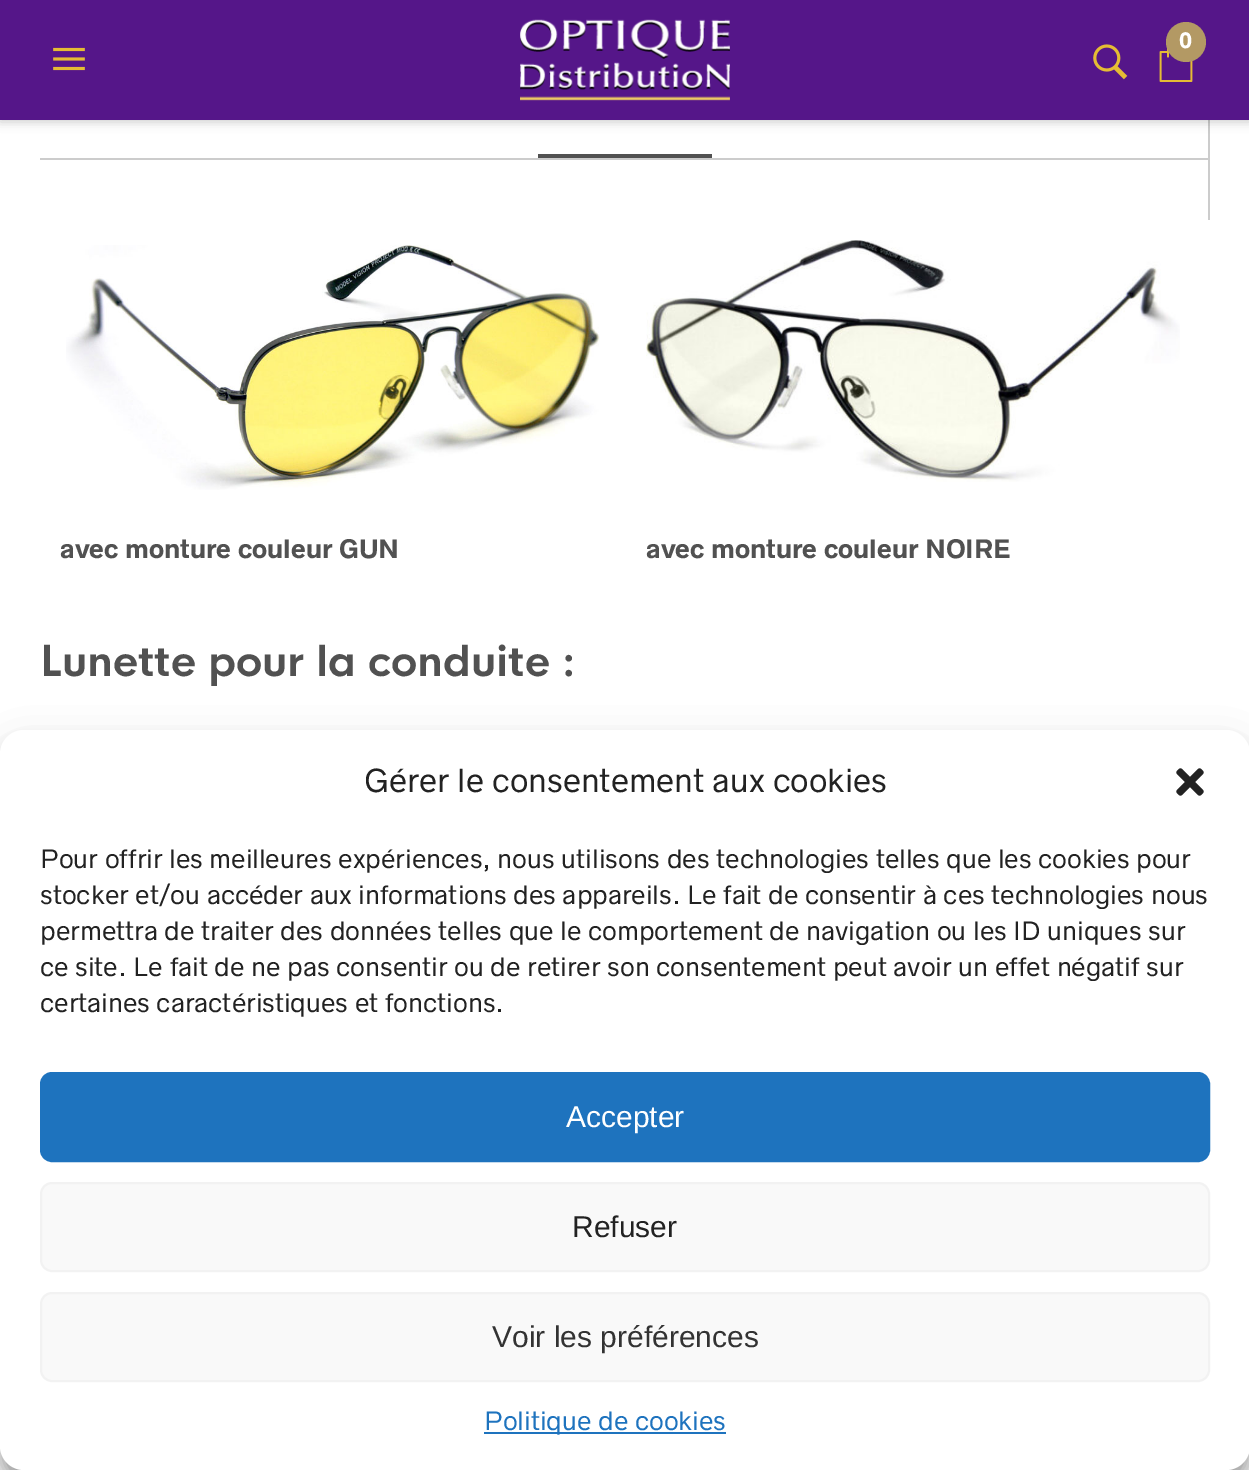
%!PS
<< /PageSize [1249 1470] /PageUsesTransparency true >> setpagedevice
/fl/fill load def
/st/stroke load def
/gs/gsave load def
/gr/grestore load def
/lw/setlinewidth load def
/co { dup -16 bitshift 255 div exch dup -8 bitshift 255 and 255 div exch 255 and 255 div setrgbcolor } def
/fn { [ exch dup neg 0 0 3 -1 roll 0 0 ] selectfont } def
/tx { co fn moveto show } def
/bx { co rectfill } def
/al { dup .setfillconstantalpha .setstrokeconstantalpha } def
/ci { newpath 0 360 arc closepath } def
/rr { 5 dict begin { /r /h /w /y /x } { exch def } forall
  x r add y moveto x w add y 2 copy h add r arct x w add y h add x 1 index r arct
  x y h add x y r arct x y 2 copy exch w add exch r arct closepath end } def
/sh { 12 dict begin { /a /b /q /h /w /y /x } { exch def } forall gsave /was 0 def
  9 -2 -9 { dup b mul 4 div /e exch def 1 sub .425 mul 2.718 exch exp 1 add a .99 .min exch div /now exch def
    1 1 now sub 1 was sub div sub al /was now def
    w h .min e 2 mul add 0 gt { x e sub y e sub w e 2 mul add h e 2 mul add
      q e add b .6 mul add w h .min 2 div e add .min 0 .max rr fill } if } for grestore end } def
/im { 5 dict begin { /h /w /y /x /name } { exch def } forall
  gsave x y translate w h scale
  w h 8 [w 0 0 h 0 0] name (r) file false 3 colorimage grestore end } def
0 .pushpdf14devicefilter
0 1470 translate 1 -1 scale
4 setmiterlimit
0 0 1249 1470 16#FFFFFF bx
1208 120 2 100 16#CCCCCC bx
16#000000 co
0 2 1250 120 0 5 .2 sh
0 0 1249 120 16#551689 bx
(media/1.raw) 520 19 210 82 im
(media/2.raw) 1159 48 34 34 im
16#B39964 co
1186 42 20 ci fl
(media/3.raw) 1093 44 35 36 im
(media/4.raw) 53 47 32 24 im
40 158 1170 2 16#CCCCCC bx
538 154 174 4 16#515151 bx
(media/5.raw) 66 245 534 245 im
(media/6.raw) 646 240 534 242 im
16#000000 co
0 742 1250 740 24 6 .23 sh
0 750 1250 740 24 20 .19 sh
16#FFFFFF co
0 730 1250 740 24 rr fl
(media/7.raw) 1176 768 28 28 im
16#1E73BE co
41 1073 1168 88 11 rr gs fl gr
2 lw
st
16#F9F9F9 co
41 1183 1168 88 11 rr gs fl gr
16#F2F2F2 co
st
16#F9F9F9 co
41 1293 1168 88 11 rr gs fl gr
16#F2F2F2 co
st
484 1432 242 2 16#1E73BE bx
(0) 1179 48 /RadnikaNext-Bold 20 16#FFFFFF tx
(avec monture couleur GUN) 60 558 /RadnikaNext-Bold 24 16#515151 tx
(avec monture couleur NOIRE) 646 558 /RadnikaNext-Bold 24 16#515151 tx
(Lunette pour la conduite :) 40 676 /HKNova-Bold 41.5 16#515151 tx
(Gérer le consentement aux cookies) 364 792 /RadnikaNext-Regular 30 16#222222 tx
(Pour offrir les meilleures expériences, nous utilisons des technologies telles que les cookies pour) 40 868 /RadnikaNext-Regular 24 16#222222 tx
(stocker et/ou accéder aux informations des appareils. Le fait de consentir à ces technologies nous) 40 904 /RadnikaNext-Regular 24 16#222222 tx
(permettra de traiter des données telles que le comportement de navigation ou les ID uniques sur) 40 940 /RadnikaNext-Regular 24 16#222222 tx
(ce site. Le fait de ne pas consentir ou de retirer son consentement peut avoir un effet négatif sur) 40 976 /RadnikaNext-Regular 24 16#222222 tx
(certaines caractéristiques et fonctions.) 40 1012 /RadnikaNext-Regular 24 16#222222 tx
(Accepter) 566 1127 /LiberationSans-Regular 30 16#FFFFFF tx
(Refuser) 572 1237 /LiberationSans-Regular 30 16#222222 tx
(Voir les préférences) 492 1347 /LiberationSans-Regular 30 16#333333 tx
(Politique de cookies) 484 1430 /RadnikaNext-Regular 24 16#1E73BE tx
.poppdf14devicefilter showpage
